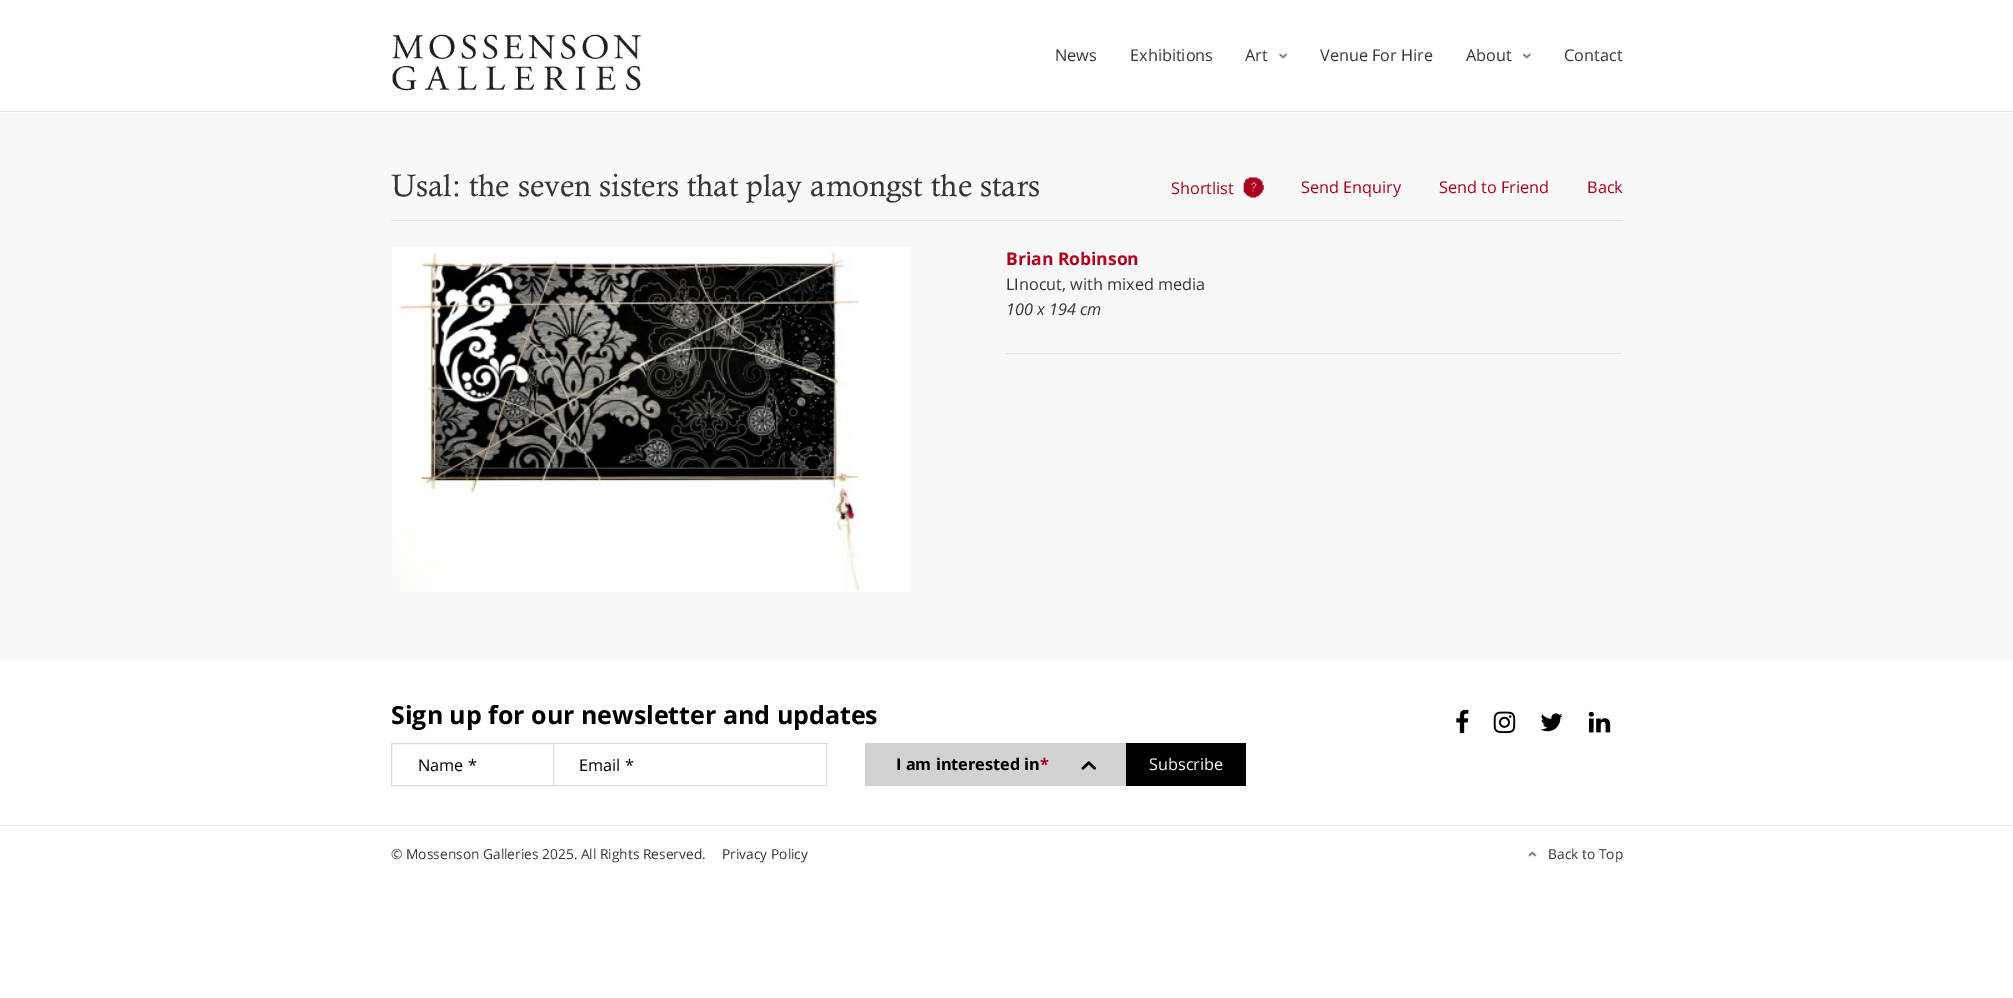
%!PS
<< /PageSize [2013 998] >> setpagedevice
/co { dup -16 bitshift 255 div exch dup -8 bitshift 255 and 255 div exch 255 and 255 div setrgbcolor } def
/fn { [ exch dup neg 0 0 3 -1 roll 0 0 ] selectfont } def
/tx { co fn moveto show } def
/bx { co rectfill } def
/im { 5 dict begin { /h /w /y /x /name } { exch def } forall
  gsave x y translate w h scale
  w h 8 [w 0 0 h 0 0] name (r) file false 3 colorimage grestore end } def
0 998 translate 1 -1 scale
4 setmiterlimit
0 0 2013 998 16#FFFFFF bx
0 111 2013 1 16#E5E5E5 bx
(media/1.raw) 392 33 249 58 im
(media/2.raw) 1278 53 10 6 im
(media/3.raw) 1522 53 10 6 im
0 113 2013 547 16#F8F8F8 bx
391 220 1232 1 16#DFDFDF bx
(media/4.raw) 1243 177 21 21 im
(media/5.raw) 392 247 519 345 im
1006 353 615 1 16#DFDFDF bx
16#DADADA co
391.5 743.5 162 42 rectstroke
554 743 274 1 16#DADADA bx
826 743 1 43 16#DADADA bx
554 785 274 1 16#DADADA bx
865 743 261 43 16#D2D2D2 bx
(media/6.raw) 1081 761 15 9 im
1126 743 120 43 16#000000 bx
(media/7.raw) 1456 709 13 25 im
(media/8.raw) 1493 711 23 22 im
(media/9.raw) 1540 713 23 19 im
(media/10.raw) 1588 711 23 22 im
0 825 2013 1 16#E5E5E5 bx
(media/11.raw) 1527 851 10 6 im
(News) 1055 61 /OpenSans-Regular 16.25 16#363636 tx
(Exhibitions) 1130 61 /OpenSans-Regular 16.25 16#363636 tx
(Art) 1245 61 /OpenSans-Regular 16.25 16#363636 tx
(Venue For Hire) 1320 61 /OpenSans-Regular 16.25 16#363636 tx
(About) 1466 61 /OpenSans-Regular 16.25 16#363636 tx
(Contact) 1564 61 /OpenSans-Regular 16.25 16#363636 tx
(Usal: the seven sisters that play amongst the stars) 391 196 /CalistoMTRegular-Regular 31.25 16#363636 tx
(Shortlist) 1171 194 /OpenSans-Regular 16.25 16#AB001D tx
(Send Enquiry) 1301 193 /OpenSans-Regular 16.25 16#AB001D tx
(Send to Friend) 1439 193 /OpenSans-Regular 16.25 16#AB001D tx
(Back) 1587 193 /OpenSans-Regular 16.25 16#AB001D tx
(Brian Robinson) 1006 265 /OpenSans-Bold 17.5 16#B1001D tx
(LInocut, with mixed media) 1006 290 /OpenSans-Regular 16.25 16#363636 tx
(100 x 194 cm) 1006 315 /OpenSans-Italic 16.25 16#363636 tx
(Sign up for our newsletter and updates) 391 724 /OpenSans-Bold 25 16#000000 tx
(Name *) 418 771 /OpenSans-Regular 16.25 16#000000 tx
(Email *) 579 771 /OpenSans-Regular 16.25 16#000000 tx
(I am interested in) 896 770 /OpenSans-Bold 16.25 16#000000 tx
(*) 1040 770 /OpenSans-Bold 16.25 16#AB001D tx
(Subscribe) 1149 770 /OpenSans-Regular 16.25 16#FFFFFF tx
(© Mossenson Galleries 2025. All Rights Reserved.) 391 859 /OpenSans-Regular 13.75 16#363636 tx
(Privacy Policy) 722 859 /OpenSans-Regular 13.75 16#363636 tx
(Back to Top) 1548 859 /OpenSans-Regular 13.75 16#363636 tx
showpage
